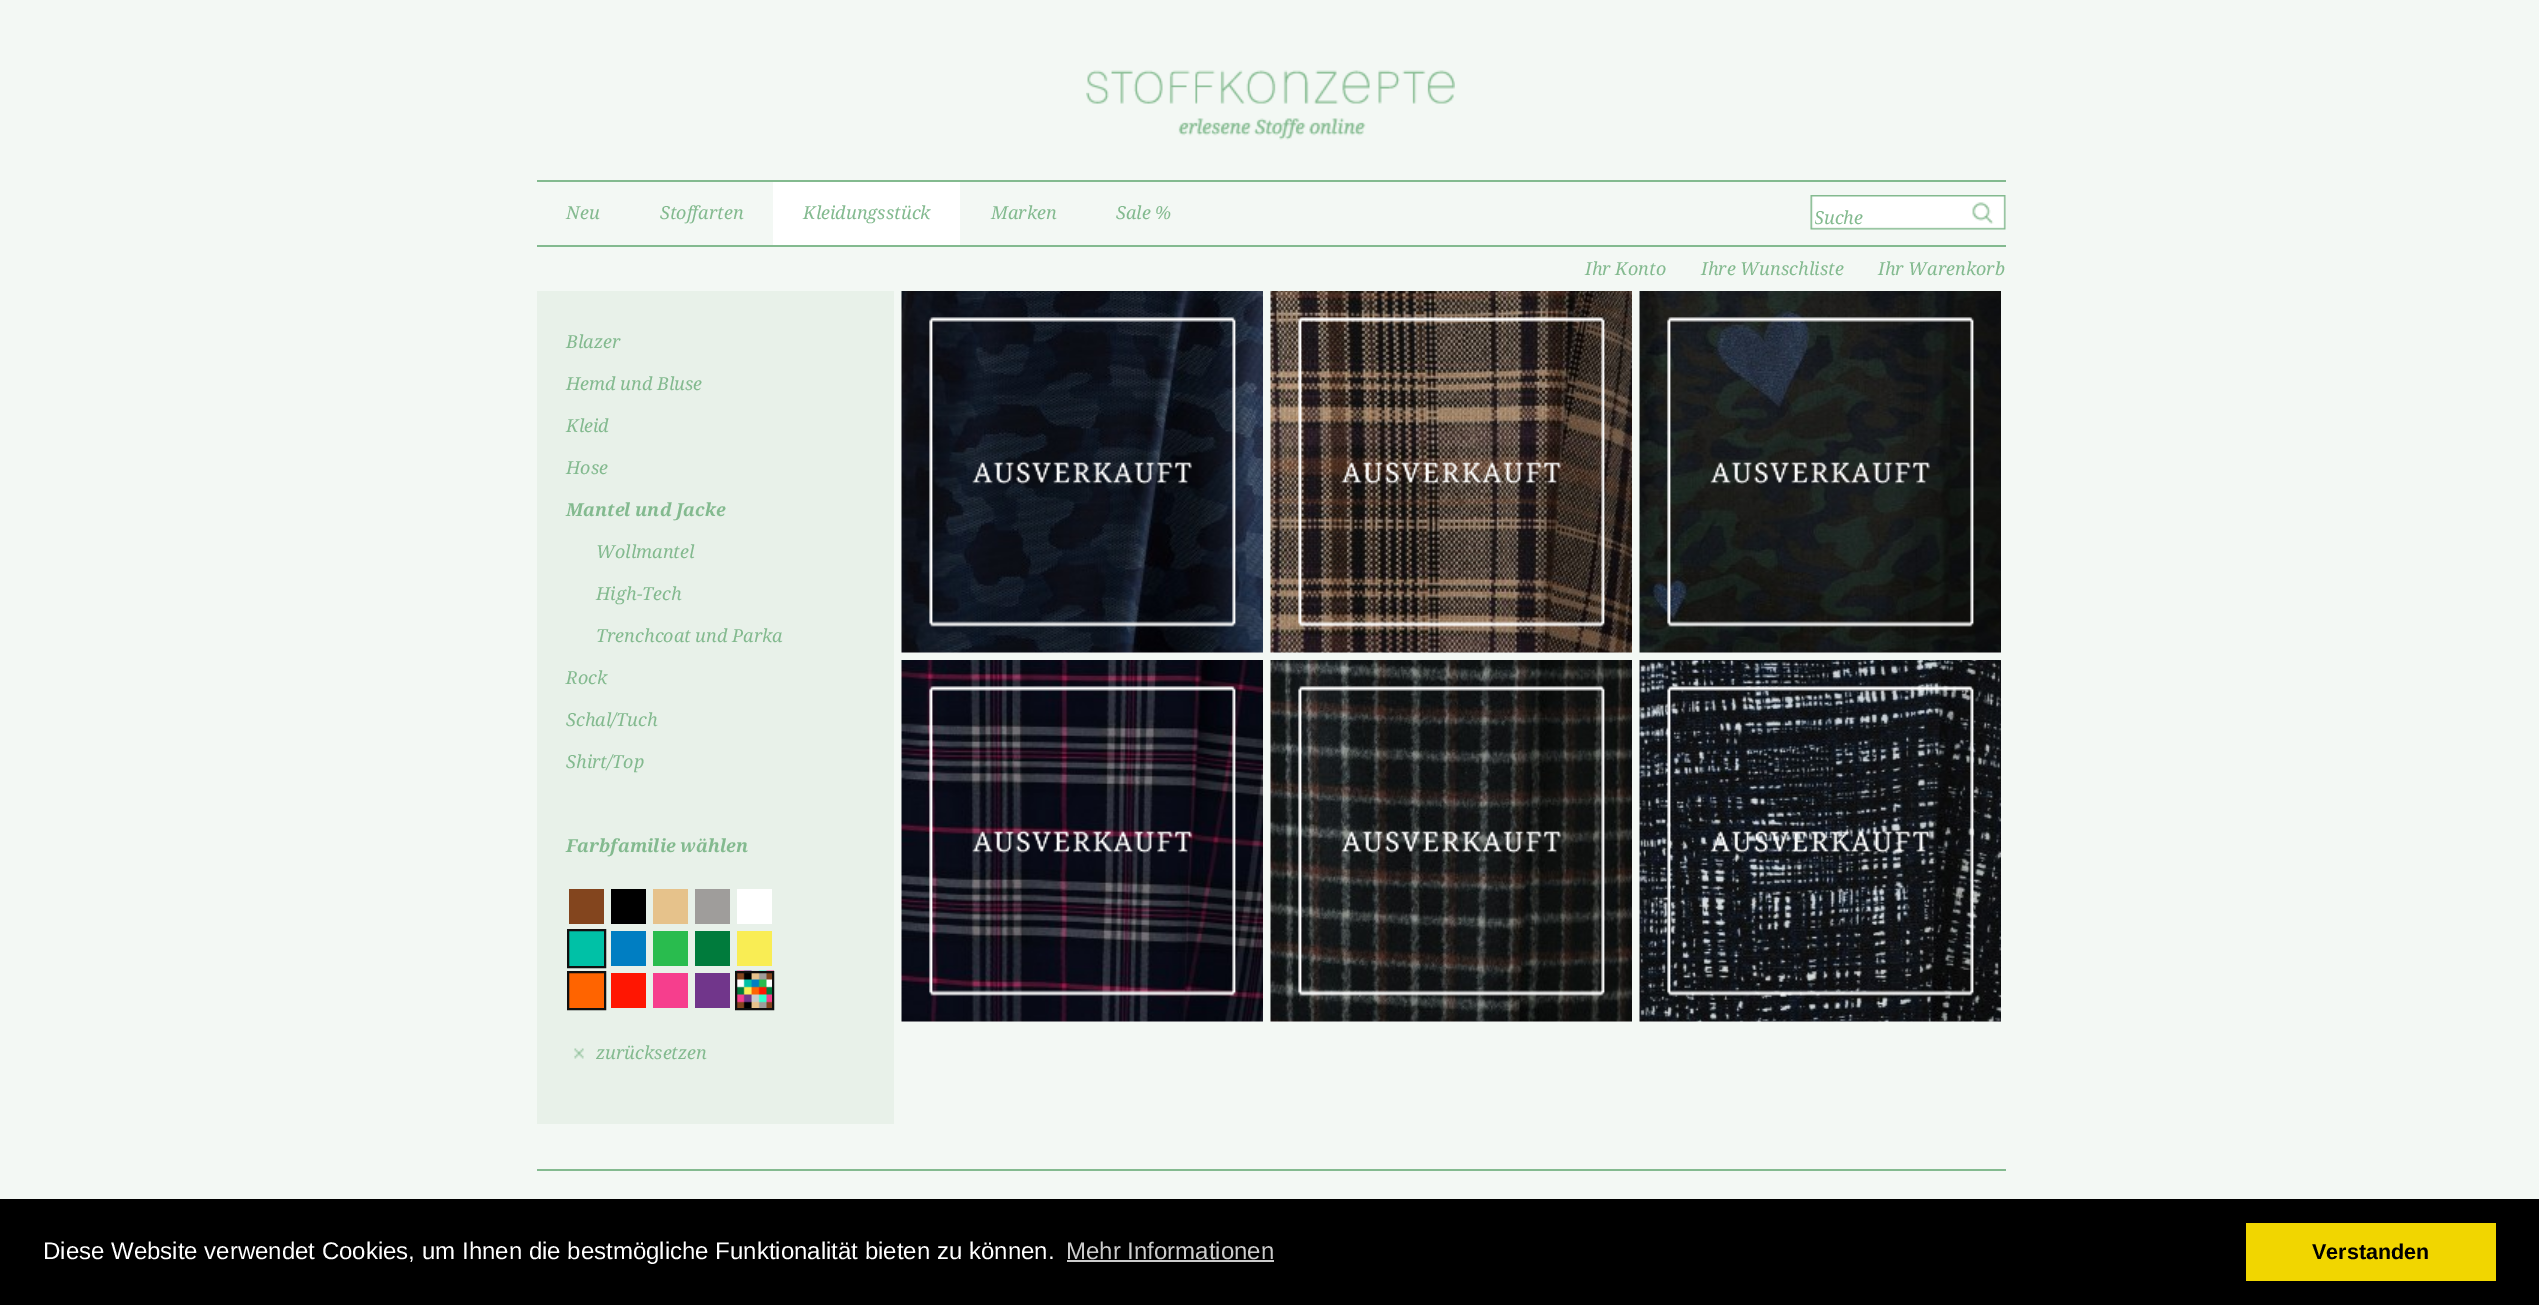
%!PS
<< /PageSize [2539 1305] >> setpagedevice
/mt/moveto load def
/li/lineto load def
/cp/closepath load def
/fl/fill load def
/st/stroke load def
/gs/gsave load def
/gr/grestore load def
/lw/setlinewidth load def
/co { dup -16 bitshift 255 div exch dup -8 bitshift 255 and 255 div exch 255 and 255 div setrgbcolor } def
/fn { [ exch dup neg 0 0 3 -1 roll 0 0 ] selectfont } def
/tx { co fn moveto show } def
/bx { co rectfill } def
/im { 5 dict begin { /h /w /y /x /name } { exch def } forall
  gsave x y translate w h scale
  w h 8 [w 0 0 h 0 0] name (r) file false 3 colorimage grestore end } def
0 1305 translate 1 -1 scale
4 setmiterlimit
0 0 2539 1305 16#F3F8F4 bx
(media/1.raw) 1086 70 369 70 im
537 180 1469 2 16#83BA8F bx
537 245 1469 2 16#83BA8F bx
773 182 187 63 16#FFFFFF bx
(media/2.raw) 1810 195 196 35 im
537 291 357 833 16#E8F1E9 bx
569 889 35 35 16#83451E bx
611 889 35 35 16#000000 bx
653 889 35 35 16#E6C28B bx
695 889 35 35 16#9F9D9B bx
737 889 35 35 16#FFFFFF bx
16#00C1A6 co
568 930 mt 605 930 li 605 967 li 568 967 li cp gs fl gr
16#101010 co
2 lw
st
611 931 35 35 16#007EC2 bx
653 931 35 35 16#29BC4E bx
695 931 35 35 16#007B3C bx
737 931 35 35 16#F9ED54 bx
16#FF6400 co
568 972 mt 605 972 li 605 1009 li 568 1009 li cp gs fl gr
16#101010 co
st
611 973 35 35 16#FF1602 bx
653 973 35 35 16#F63E8D bx
695 973 35 35 16#71368B bx
(media/3.raw) 735 970 39 38 im
16#101010 co
736 972 37 37 rectstroke
(media/4.raw) 574 1048 10 11 im
902 652 361 1 16#F0F0F0 bx
(media/5.raw) 901 291 362 362 im
(media/6.raw) 929 317 307 310 im
1271 652 361 1 16#F0F0F0 bx
(media/7.raw) 1270 291 362 362 im
(media/8.raw) 1298 317 307 310 im
1640 652 361 1 16#F0F0F0 bx
(media/9.raw) 1639 291 362 362 im
(media/10.raw) 1667 317 307 310 im
902 1021 361 1 16#F0F0F0 bx
(media/11.raw) 901 660 362 362 im
(media/12.raw) 929 686 307 310 im
1271 1021 361 1 16#F0F0F0 bx
(media/13.raw) 1270 660 362 362 im
(media/14.raw) 1298 686 307 310 im
1640 1021 361 1 16#F0F0F0 bx
(media/15.raw) 1639 660 362 362 im
(media/16.raw) 1667 686 307 310 im
537 1169 1469 2 16#83BA8F bx
0 1199 2539 106 16#000000 bx
1067 1260 207 2 16#CCCCCC bx
2246 1223 250 58 16#F1D600 bx
(Neu) 566 219 /DroidSerif-Italic 18 16#83BA8F tx
(Stoffarten) 660 219 /DroidSerif-Italic 18 16#83BA8F tx
(Kleidungsstück) 803 219 /DroidSerif-Italic 18 16#83BA8F tx
(Marken) 991 219 /DroidSerif-Italic 18 16#83BA8F tx
(Sale %) 1116 219 /DroidSerif-Italic 18 16#83BA8F tx
gs
1815 201 150 33 rectclip
(Suche) 1814 224 /DroidSerif-Italic 18 16#83BA8F tx
gr
(Ihr Konto) 1585 275 /DroidSerif-Italic 18 16#83BA8F tx
(Ihre Wunschliste) 1701 275 /DroidSerif-Italic 18 16#83BA8F tx
(Ihr Warenkorb) 1878 275 /DroidSerif-Italic 18 16#83BA8F tx
(Blazer) 566 348 /DroidSerif-Italic 18 16#83BA8F tx
(Hemd und Bluse) 566 390 /DroidSerif-Italic 18 16#83BA8F tx
(Kleid) 566 432 /DroidSerif-Italic 18 16#83BA8F tx
(Hose) 566 474 /DroidSerif-Italic 18 16#83BA8F tx
(Mantel und Jacke) 566 516 /DroidSerif-BoldItalic 18 16#83BA8F tx
(Wollmantel) 596 558 /DroidSerif-Italic 18 16#83BA8F tx
(High-Tech) 596 600 /DroidSerif-Italic 18 16#83BA8F tx
(Trenchcoat und Parka) 596 642 /DroidSerif-Italic 18 16#83BA8F tx
(Rock) 566 684 /DroidSerif-Italic 18 16#83BA8F tx
(Schal/Tuch) 566 726 /DroidSerif-Italic 18 16#83BA8F tx
(Shirt/Top) 566 768 /DroidSerif-Italic 18 16#83BA8F tx
(Farbfamilie wählen) 566 852 /DroidSerif-BoldItalic 18 16#83BA8F tx
(zurücksetzen) 596 1059 /DroidSerif-Italic 18 16#83BA8F tx
(Diese Website verwendet Cookies, um Ihnen die bestmögliche Funktionalität bieten zu können.) 43 1259 /LiberationSans-Regular 24 16#FFFFFF tx
(Mehr Informationen) 1066 1259 /LiberationSans-Regular 24 16#CCCCCC tx
(Verstanden) 2312 1259 /LiberationSans-Bold 21.5 16#000000 tx
showpage
